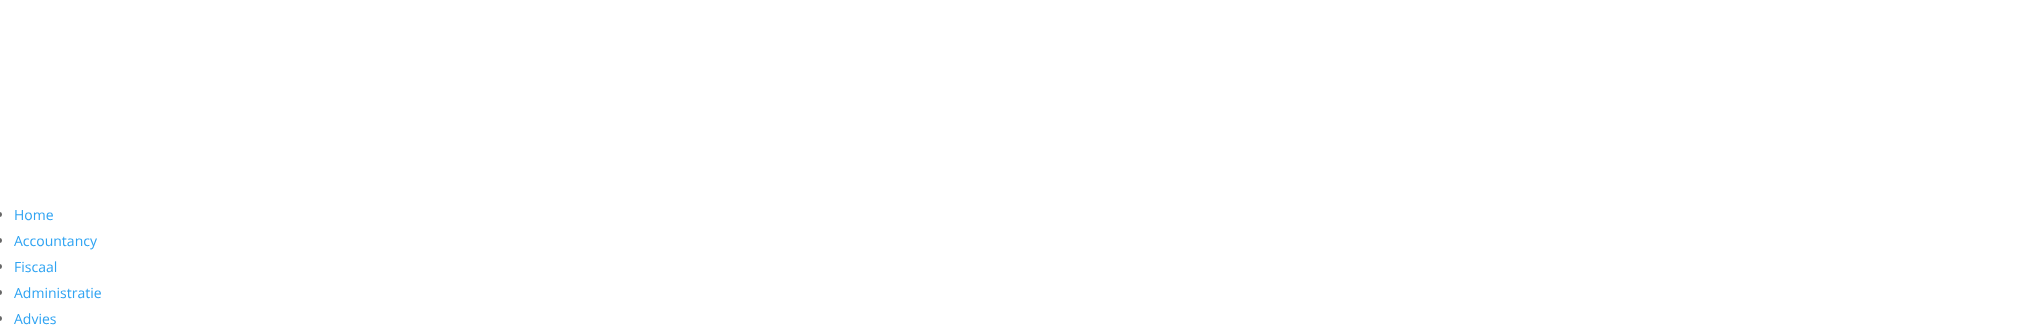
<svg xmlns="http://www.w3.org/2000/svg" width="2020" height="335">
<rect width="100%" height="100%" fill="#fff"/>
<circle cx="-0.5" cy="214.5" r="2.5" fill="#666"/>
<text x="14" y="220" style="font-family:Open Sans;font-size:14px;fill:#2ea3f2">Home</text>
<circle cx="-0.5" cy="240.5" r="2.5" fill="#666"/>
<text x="14" y="246" style="font-family:Open Sans;font-size:14px;fill:#2ea3f2">Accountancy</text>
<circle cx="-0.5" cy="266.5" r="2.5" fill="#666"/>
<text x="14" y="272" style="font-family:Open Sans;font-size:14px;fill:#2ea3f2">Fiscaal</text>
<circle cx="-0.5" cy="292.5" r="2.5" fill="#666"/>
<text x="14" y="298" style="font-family:Open Sans;font-size:14px;fill:#2ea3f2">Administratie</text>
<circle cx="-0.5" cy="318.5" r="2.5" fill="#666"/>
<text x="14" y="324" style="font-family:Open Sans;font-size:14px;fill:#2ea3f2">Advies</text>
</svg>
